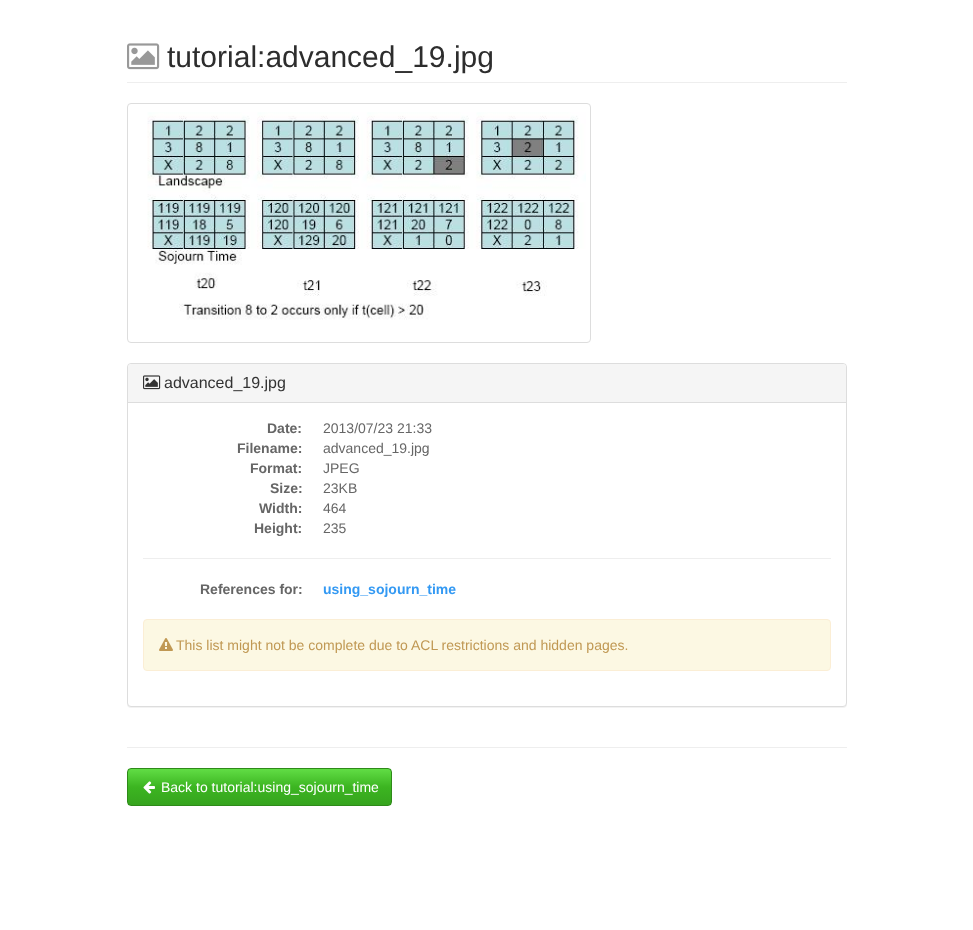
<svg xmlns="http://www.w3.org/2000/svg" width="973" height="930">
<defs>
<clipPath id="clip1"><rect x="127" y="768" width="265" height="38" rx="4"/></clipPath>
<linearGradient id="g1" gradientUnits="userSpaceOnUse" x1="260" y1="769" x2="260" y2="805"><stop offset="0" stop-color="#61dd45"/><stop offset="0.5" stop-color="#3cb521"/><stop offset="1" stop-color="#36a41e"/></linearGradient>
</defs>
<rect width="100%" height="100%" fill="#fff"/>
<rect x="127" y="82" width="720" height="1" fill="#eee"/>
<image x="127" y="43" width="33" height="27" href="media/1.png"/>
<text x="167" y="67" style="font-family:Liberation Sans;font-size:30px;fill:#2d2d2d">tutorial:advanced_19.jpg</text>
<rect x="127.5" y="103.5" width="463" height="239" rx="3.5" fill="none" stroke="#ddd"/>
<image x="147" y="112" width="439" height="208" href="media/2.png"/>
<rect x="127" y="364" width="720" height="344" rx="4" fill="#0000000d" filter="blur(0.5px)"/>
<rect x="127.5" y="363.5" width="719" height="343" rx="3.5" fill="#fff" stroke="#ddd"/>
<path d="M131 364h712c1.5 0 3 1.5 3 3v36h-718v-36c0-1.5 1.5-3 3-3z" fill="#f5f5f5"/>
<rect x="128" y="402" width="718" height="1" fill="#ddd"/>
<image x="143" y="375" width="18" height="15" href="media/3.png"/>
<text x="164" y="388" style="font-family:Liberation Sans;font-size:16px;fill:#333">advanced_19.jpg</text>
<text x="267" y="433" style="font-family:Liberation Sans;font-size:14px;font-weight:bold;fill:#666">Date:</text>
<text x="323" y="433" style="font-family:Liberation Sans;font-size:14px;fill:#666">2013/07/23 21:33</text>
<text x="237" y="453" style="font-family:Liberation Sans;font-size:14px;font-weight:bold;fill:#666">Filename:</text>
<text x="323" y="453" style="font-family:Liberation Sans;font-size:14px;fill:#666">advanced_19.jpg</text>
<text x="250" y="473" style="font-family:Liberation Sans;font-size:14px;font-weight:bold;fill:#666">Format:</text>
<text x="323" y="473" style="font-family:Liberation Sans;font-size:14px;fill:#666">JPEG</text>
<text x="270" y="493" style="font-family:Liberation Sans;font-size:14px;font-weight:bold;fill:#666">Size:</text>
<text x="323" y="493" style="font-family:Liberation Sans;font-size:14px;fill:#666">23KB</text>
<text x="259" y="513" style="font-family:Liberation Sans;font-size:14px;font-weight:bold;fill:#666">Width:</text>
<text x="323" y="513" style="font-family:Liberation Sans;font-size:14px;fill:#666">464</text>
<text x="254" y="533" style="font-family:Liberation Sans;font-size:14px;font-weight:bold;fill:#666">Height:</text>
<text x="323" y="533" style="font-family:Liberation Sans;font-size:14px;fill:#666">235</text>
<rect x="143" y="558" width="688" height="1" fill="#eee"/>
<text x="200" y="594" style="font-family:Liberation Sans;font-size:14px;font-weight:bold;fill:#666">References for:</text>
<text x="323" y="594" style="font-family:Liberation Sans;font-size:14px;font-weight:bold;fill:#3399f3">using_sojourn_time</text>
<rect x="143.5" y="619.5" width="687" height="51" rx="3.5" fill="#fcf8e3" stroke="#fbeed5"/>
<image x="159" y="638" width="14" height="13" href="media/4.png"/>
<text x="176" y="650" style="font-family:Liberation Sans;font-size:14px;fill:#c09853">This list might not be complete due to ACL restrictions and hidden pages.</text>
<rect x="127" y="747" width="720" height="1" fill="#eee"/>
<g clip-path="url(#clip1)">
<rect x="128" y="769" width="263" height="36" fill="url(#g1)"/>
</g>
<rect x="127.5" y="768.5" width="264" height="37" rx="3.5" fill="none" stroke="#2e8a19"/>
<image x="143" y="781" width="12" height="13" href="media/5.png"/>
<text x="161" y="792" style="font-family:Liberation Sans;font-size:14px;fill:#fff">Back to tutorial:using_sojourn_time</text>
</svg>
